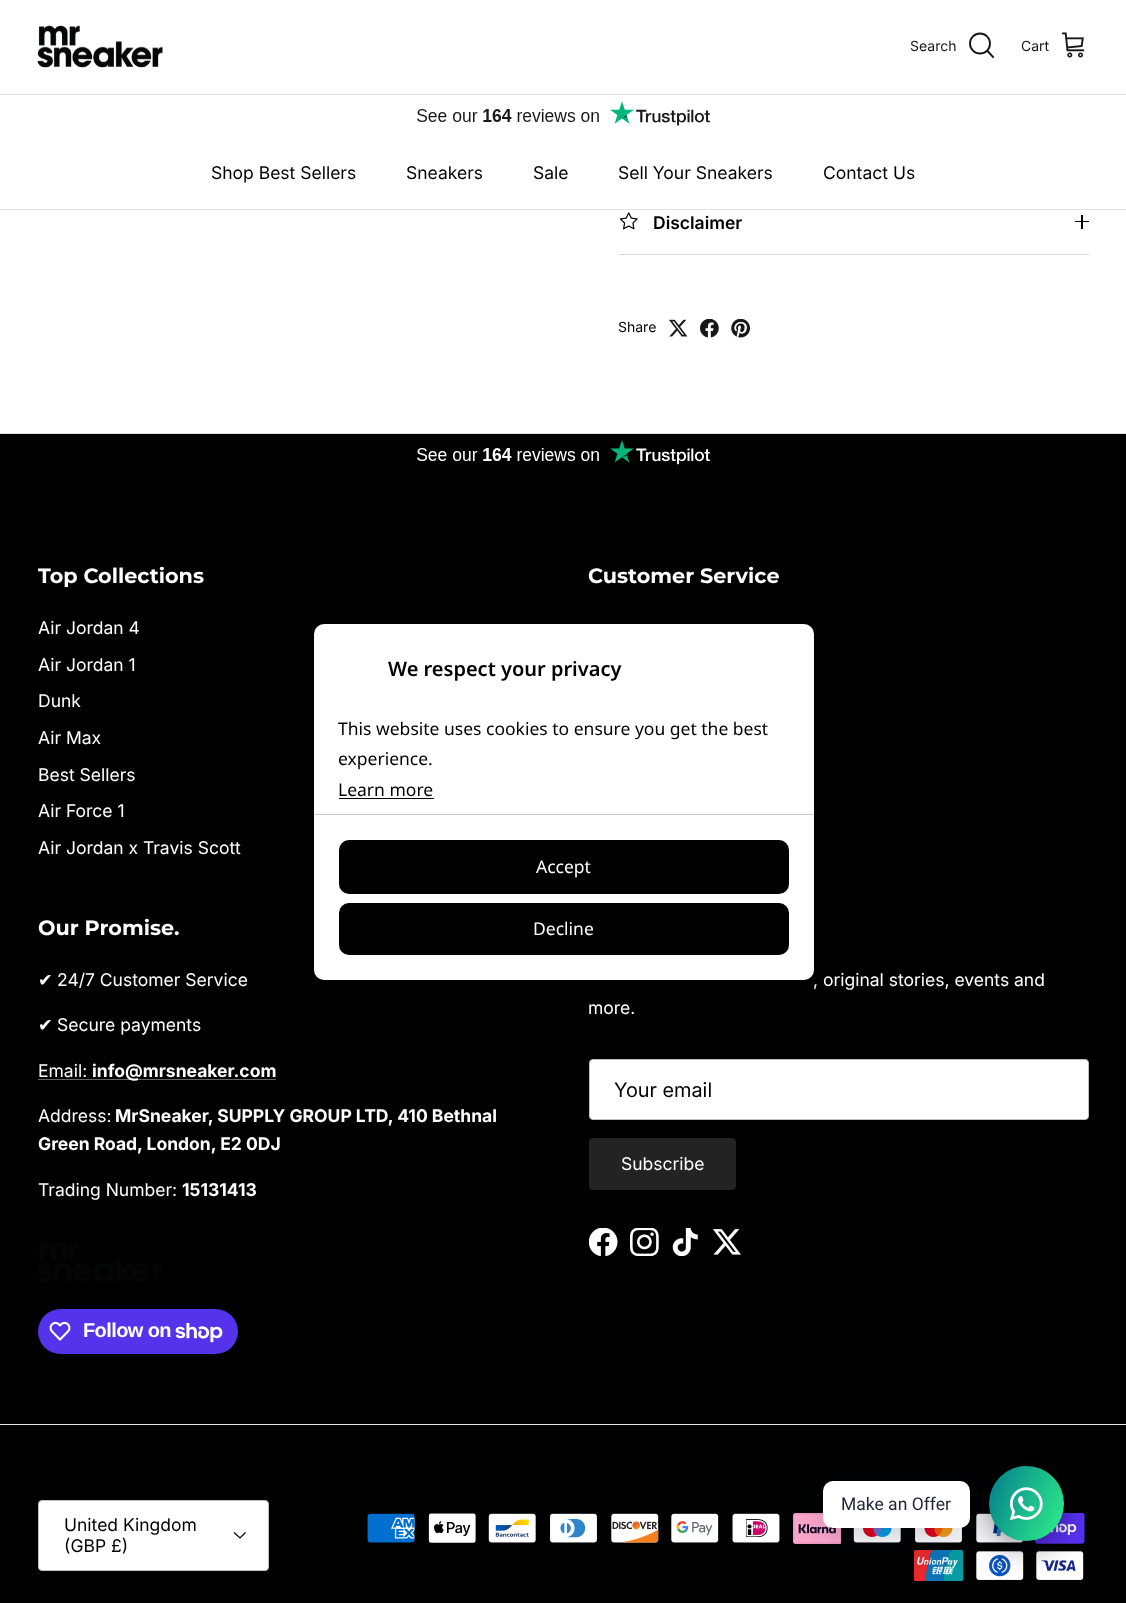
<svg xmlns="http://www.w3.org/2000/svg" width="1126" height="1603">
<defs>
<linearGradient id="g1" gradientUnits="userSpaceOnUse" x1="981" y1="1483" x2="1071" y2="1525"><stop offset="0" stop-color="#047c8d"/><stop offset="1" stop-color="#2ff289"/></linearGradient>
</defs>
<rect width="100%" height="100%" fill="#fff"/>
<rect y="94" width="1126" height="1" fill="#e2e2e2"/>
<image x="37" y="25" width="126" height="43" href="media/1.png"/>
<text x="910" y="51" style="font-family:Inter;font-size:14px;fill:#171717">Search</text>
<circle cx="980" cy="43.5" r="10" fill="none" stroke="#171717" stroke-width="1.9"/>
<path d="M987.5 51l5.5 6" fill="none" stroke="#171717" stroke-width="1.9" stroke-linecap="square"/>
<text x="1021" y="51" style="font-family:Inter;font-size:14px;fill:#171717">Cart</text>
<image x="1062" y="32" width="23" height="26" href="media/2.png"/>
<image x="417" y="101" width="293" height="25" href="media/3.png"/>
<rect y="209" width="1126" height="1" fill="#e2e2e2"/>
<text x="211" y="179" style="font-family:Inter;font-size:17.5px;fill:#000">Shop Best Sellers</text>
<text x="406" y="179" style="font-family:Inter;font-size:17.5px;fill:#000">Sneakers</text>
<text x="533" y="179" style="font-family:Inter;font-size:17.5px;fill:#000">Sale</text>
<text x="618" y="179" style="font-family:Inter;font-size:17.5px;fill:#000">Sell Your Sneakers</text>
<text x="823" y="179" style="font-family:Inter;font-size:17.5px;fill:#000">Contact Us</text>
<rect x="619" y="254" width="470" height="1" fill="#d9d9d9"/>
<image x="619" y="212" width="19" height="18" href="media/4.png"/>
<text x="653" y="229" style="font-family:Inter;font-size:17.5px;font-weight:600;fill:#000">Disclaimer</text>
<rect x="1081" y="215" width="2" height="14" fill="#000"/>
<rect x="1075" y="221" width="14" height="1" fill="#000"/>
<text x="618" y="332" style="font-family:Inter;font-size:14px;fill:#000">Share</text>
<image x="669" y="319" width="19" height="18" href="media/5.png"/>
<image x="700" y="319" width="19" height="19" href="media/6.png"/>
<image x="731" y="319" width="19" height="19" href="media/7.png"/>
<rect y="434" width="1126" height="1169" fill="#000"/>
<rect y="433" width="1126" height="1" fill="#e4e4e4"/>
<image x="417" y="440" width="293" height="25" href="media/8.png"/>
<text x="38" y="583" style="font-family:Montserrat;font-size:20.75px;font-weight:bold;fill:#fff">Top Collections</text>
<text x="38" y="634" style="font-family:Inter;font-size:17.5px;fill:#fff">Air Jordan 4</text>
<text x="38" y="671" style="font-family:Inter;font-size:17.5px;fill:#fff">Air Jordan 1</text>
<text x="38" y="707" style="font-family:Inter;font-size:17.5px;fill:#fff">Dunk</text>
<text x="38" y="744" style="font-family:Inter;font-size:17.5px;fill:#fff">Air Max</text>
<text x="38" y="781" style="font-family:Inter;font-size:17.5px;fill:#fff">Best Sellers</text>
<text x="38" y="817" style="font-family:Inter;font-size:17.5px;fill:#fff">Air Force 1</text>
<text x="38" y="854" style="font-family:Inter;font-size:17.5px;fill:#fff">Air Jordan x Travis Scott</text>
<text x="588" y="583" style="font-family:Montserrat;font-size:20.75px;font-weight:bold;fill:#fff">Customer Service</text>
<text x="38" y="935" style="font-family:Montserrat;font-size:20.75px;font-weight:bold;fill:#fff">Our Promise.</text>
<text x="38" y="986" style="font-family:DejaVu Sans;font-size:17.5px;fill:#fff">✔</text>
<text x="57" y="986" style="font-family:Inter;font-size:17.5px;fill:#fff">24/7 Customer Service</text>
<text x="38" y="1031" style="font-family:DejaVu Sans;font-size:17.5px;fill:#fff">✔</text>
<text x="57" y="1031" style="font-family:Inter;font-size:17.5px;fill:#fff">Secure payments</text>
<text x="38" y="1077" style="font-family:Inter;font-size:17.5px;fill:#fff">Email:</text>
<rect x="38" y="1079" width="238" height="1" fill="#666"/>
<text x="92" y="1077" style="font-family:Inter;font-size:17.5px;font-weight:bold;fill:#fff">info@mrsneaker.com</text>
<text x="38" y="1122" style="font-family:Inter;font-size:17.5px;fill:#fff">Address:</text>
<text x="115" y="1122" style="font-family:Inter;font-size:17.5px;font-weight:bold;fill:#fff">MrSneaker, SUPPLY GROUP LTD, 410 Bethnal</text>
<text x="38" y="1150" style="font-family:Inter;font-size:17.5px;font-weight:bold;fill:#fff">Green Road, London, E2 0DJ</text>
<text x="38" y="1196" style="font-family:Inter;font-size:17.5px;fill:#fff">Trading Number:</text>
<text x="182" y="1196" style="font-family:Inter;font-size:17.5px;font-weight:bold;fill:#fff">15131413</text>
<image x="38" y="1242" width="124" height="40" href="media/9.png"/>
<rect x="38" y="1309" width="200" height="45" rx="22.5" fill="#5433eb"/>
<image x="49" y="1321" width="22" height="20" href="media/10.png"/>
<text x="83" y="1337" style="font-family:Liberation Sans;font-size:20px;font-weight:bold;letter-spacing:-0.6px;fill:#fff">Follow on</text>
<image x="175" y="1323" width="48" height="20" href="media/11.png"/>
<text x="813" y="986" style="font-family:Inter;font-size:17.5px;fill:#fff">, original stories, events and</text>
<text x="588" y="1014" style="font-family:Inter;font-size:17.5px;fill:#fff">more.</text>
<rect x="589.5" y="1059.5" width="499" height="60" rx="3.5" fill="#fff" stroke="#bfbfbf"/>
<text x="614" y="1097" style="font-family:'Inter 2';font-size:20px;fill:#000">Your email</text>
<rect x="589.5" y="1138.5" width="146" height="51" rx="3.5" fill="#232323" stroke="#232323"/>
<text x="621" y="1170" style="font-family:Inter;font-size:17.5px;fill:#fff">Subscribe</text>
<image x="589" y="1228" width="29" height="28" href="media/12.png"/>
<image x="630" y="1228" width="29" height="28" href="media/13.png"/>
<image x="672" y="1228" width="26" height="28" href="media/14.png"/>
<image x="713" y="1229" width="28" height="26" href="media/15.png"/>
<rect y="1424" width="1126" height="1" fill="#e4e4e4"/>
<rect x="38.5" y="1500.5" width="230" height="70" rx="3.5" fill="#fff" stroke="#bfbfbf"/>
<text x="64" y="1531" style="font-family:Inter;font-size:17.5px;fill:#000">United Kingdom</text>
<text x="64" y="1552" style="font-family:Inter;font-size:17.5px;fill:#000">(GBP £)</text>
<path d="M245.5 1532.5l-5.5 5.5l-6-5.5" fill="none" stroke="#000" stroke-width="1.2"/>
<image x="367" y="1513" width="48" height="30" href="media/16.png"/>
<image x="428" y="1513" width="48" height="30" href="media/17.png"/>
<image x="488" y="1513" width="48" height="30" href="media/18.png"/>
<image x="550" y="1513" width="47" height="30" href="media/19.png"/>
<image x="611" y="1513" width="48" height="30" href="media/20.png"/>
<image x="671" y="1513" width="48" height="30" href="media/21.png"/>
<image x="732" y="1513" width="48" height="30" href="media/22.png"/>
<image x="793" y="1513" width="48" height="31" href="media/23.png"/>
<image x="853" y="1528" width="48" height="15" href="media/24.png"/>
<image x="915" y="1527" width="47" height="16" href="media/25.png"/>
<image x="976" y="1513" width="48" height="30" href="media/26.png"/>
<image x="1035" y="1513" width="50" height="31" href="media/27.png"/>
<image x="914" y="1550" width="50" height="31" href="media/28.png"/>
<image x="976" y="1551" width="48" height="29" href="media/29.png"/>
<image x="1036" y="1551" width="48" height="29" href="media/30.png"/>
<rect x="314" y="624" width="500" height="356" rx="10" fill="#00000080" filter="blur(9px)"/>
<rect x="314" y="624" width="500" height="356" rx="10" fill="#fff"/>
<text x="388" y="676" style="font-family:Noto Sans;font-size:20px;font-weight:600;fill:#000">We respect your privacy</text>
<text x="338" y="735" style="font-family:Noto Sans;font-size:17.5px;fill:#000">This website uses cookies to ensure you get the best</text>
<text x="338" y="765" style="font-family:Noto Sans;font-size:17.5px;fill:#000">experience.</text>
<text x="338" y="796" style="font-family:Noto Sans;font-size:17.5px;fill:#000">Learn more</text>
<rect x="339" y="798" width="95" height="1" fill="#000"/>
<rect x="314" y="814" width="500" height="1" fill="#ccc"/>
<rect x="340.5" y="841.5" width="447" height="51" rx="8.5" fill="#000" stroke="#000" stroke-width="3"/>
<text x="536" y="873" style="font-family:Noto Sans;font-size:17.5px;fill:#fff">Accept</text>
<rect x="340.5" y="904.5" width="447" height="49" rx="8.5" fill="#000" stroke="#000" stroke-width="3"/>
<text x="533" y="935" style="font-family:Noto Sans;font-size:17.5px;fill:#fff">Decline</text>
<rect x="989" y="1471" width="75" height="75" rx="37.5" fill="#02061080" filter="blur(15px)"/>
<circle cx="1026.5" cy="1503.5" r="37.5" fill="url(#g1)"/>
<rect x="823" y="1489" width="147" height="46" rx="10" fill="#00122e3d" filter="blur(20px)"/>
<rect x="823" y="1481" width="147" height="47" rx="10" fill="#fff"/>
<text x="841" y="1510" style="font-family:Roboto;font-size:17.5px;fill:#1e2433">Make an Offer</text>
<image x="1009" y="1487" width="34" height="34" href="media/31.png"/>
</svg>
